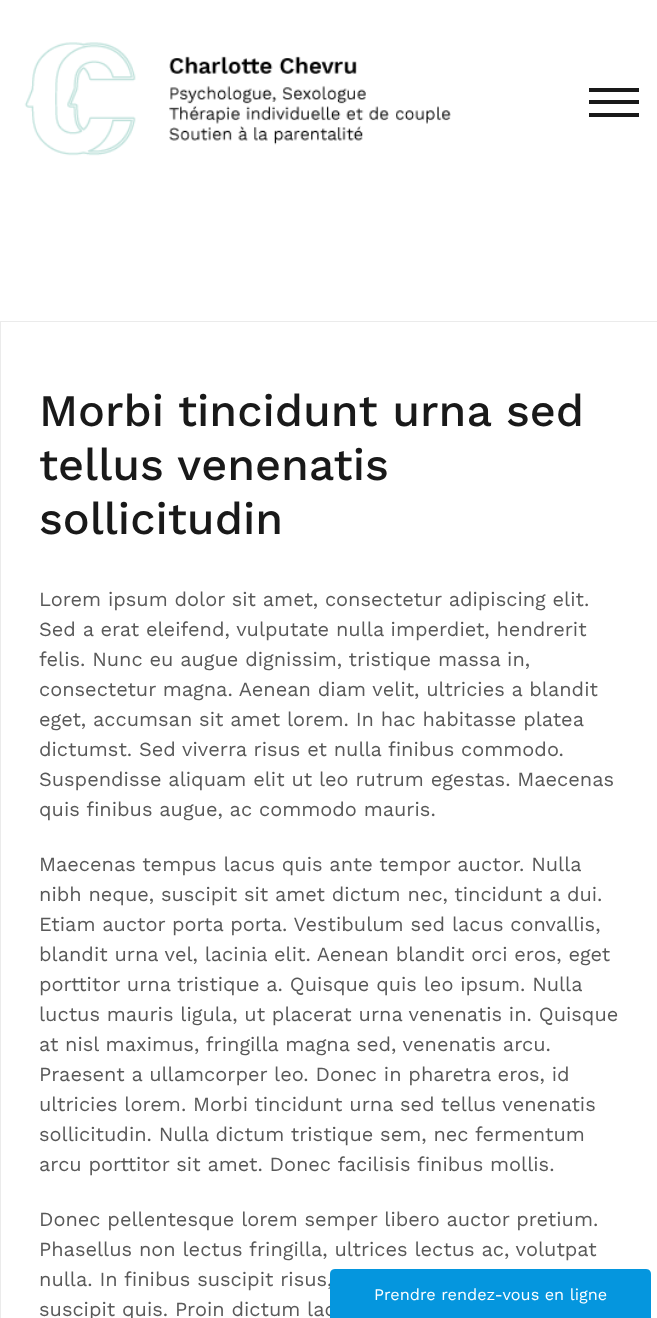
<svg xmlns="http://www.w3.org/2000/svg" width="657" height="1318">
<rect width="100%" height="100%" fill="#fff"/>
<image x="24" y="42" width="427" height="114" href="media/1.png"/>
<rect x="589" y="100" width="50" height="4" fill="#191919"/>
<rect x="589" y="88" width="50" height="4" fill="#191919"/>
<rect x="589" y="113" width="50" height="4" fill="#191919"/>
<rect x="0.5" y="321.5" width="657" height="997" fill="none" stroke="#ebebeb"/>
<text x="39" y="426" style="font-family:Work Sans;font-size:45px;font-weight:500;fill:#191919">Morbi tincidunt urna sed</text>
<text x="39" y="480" style="font-family:Work Sans;font-size:45px;font-weight:500;fill:#191919">tellus venenatis</text>
<text x="39" y="534" style="font-family:Work Sans;font-size:45px;font-weight:500;fill:#191919">sollicitudin</text>
<text x="39" y="606" style="font-family:Work Sans;font-size:20px;fill:#595959">Lorem ipsum dolor sit amet, consectetur adipiscing elit.</text>
<text x="39" y="636" style="font-family:Work Sans;font-size:20px;fill:#595959">Sed a erat eleifend, vulputate nulla imperdiet, hendrerit</text>
<text x="39" y="666" style="font-family:Work Sans;font-size:20px;fill:#595959">felis. Nunc eu augue dignissim, tristique massa in,</text>
<text x="39" y="696" style="font-family:Work Sans;font-size:20px;fill:#595959">consectetur magna. Aenean diam velit, ultricies a blandit</text>
<text x="39" y="726" style="font-family:Work Sans;font-size:20px;fill:#595959">eget, accumsan sit amet lorem. In hac habitasse platea</text>
<text x="39" y="756" style="font-family:Work Sans;font-size:20px;fill:#595959">dictumst. Sed viverra risus et nulla finibus commodo.</text>
<text x="39" y="786" style="font-family:Work Sans;font-size:20px;fill:#595959">Suspendisse aliquam elit ut leo rutrum egestas. Maecenas</text>
<text x="39" y="816" style="font-family:Work Sans;font-size:20px;fill:#595959">quis finibus augue, ac commodo mauris.</text>
<text x="39" y="871" style="font-family:Work Sans;font-size:20px;fill:#595959">Maecenas tempus lacus quis ante tempor auctor. Nulla</text>
<text x="39" y="901" style="font-family:Work Sans;font-size:20px;fill:#595959">nibh neque, suscipit sit amet dictum nec, tincidunt a dui.</text>
<text x="39" y="931" style="font-family:Work Sans;font-size:20px;fill:#595959">Etiam auctor porta porta. Vestibulum sed lacus convallis,</text>
<text x="39" y="961" style="font-family:Work Sans;font-size:20px;fill:#595959">blandit urna vel, lacinia elit. Aenean blandit orci eros, eget</text>
<text x="39" y="991" style="font-family:Work Sans;font-size:20px;fill:#595959">porttitor urna tristique a. Quisque quis leo ipsum. Nulla</text>
<text x="39" y="1021" style="font-family:Work Sans;font-size:20px;fill:#595959">luctus mauris ligula, ut placerat urna venenatis in. Quisque</text>
<text x="39" y="1051" style="font-family:Work Sans;font-size:20px;fill:#595959">at nisl maximus, fringilla magna sed, venenatis arcu.</text>
<text x="39" y="1081" style="font-family:Work Sans;font-size:20px;fill:#595959">Praesent a ullamcorper leo. Donec in pharetra eros, id</text>
<text x="39" y="1111" style="font-family:Work Sans;font-size:20px;fill:#595959">ultricies lorem. Morbi tincidunt urna sed tellus venenatis</text>
<text x="39" y="1141" style="font-family:Work Sans;font-size:20px;fill:#595959">sollicitudin. Nulla dictum tristique sem, nec fermentum</text>
<text x="39" y="1171" style="font-family:Work Sans;font-size:20px;fill:#595959">arcu porttitor sit amet. Donec facilisis finibus mollis.</text>
<text x="39" y="1226" style="font-family:Work Sans;font-size:20px;fill:#595959">Donec pellentesque lorem semper libero auctor pretium.</text>
<text x="39" y="1256" style="font-family:Work Sans;font-size:20px;fill:#595959">Phasellus non lectus fringilla, ultrices lectus ac, volutpat</text>
<text x="39" y="1286" style="font-family:Work Sans;font-size:20px;fill:#595959">nulla. In finibus suscipit risus,</text>
<text x="39" y="1316" style="font-family:Work Sans;font-size:20px;fill:#595959">suscipit quis. Proin dictum lac</text>
<path d="M335 1269h311c3 0 5 2 5 5v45h-321v-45c0-3 2-5 5-5z" fill="#0596de"/>
<text x="374" y="1300" style="font-family:Work Sans;font-size:16.25px;fill:#fff">Prendre rendez-vous en ligne</text>
</svg>
